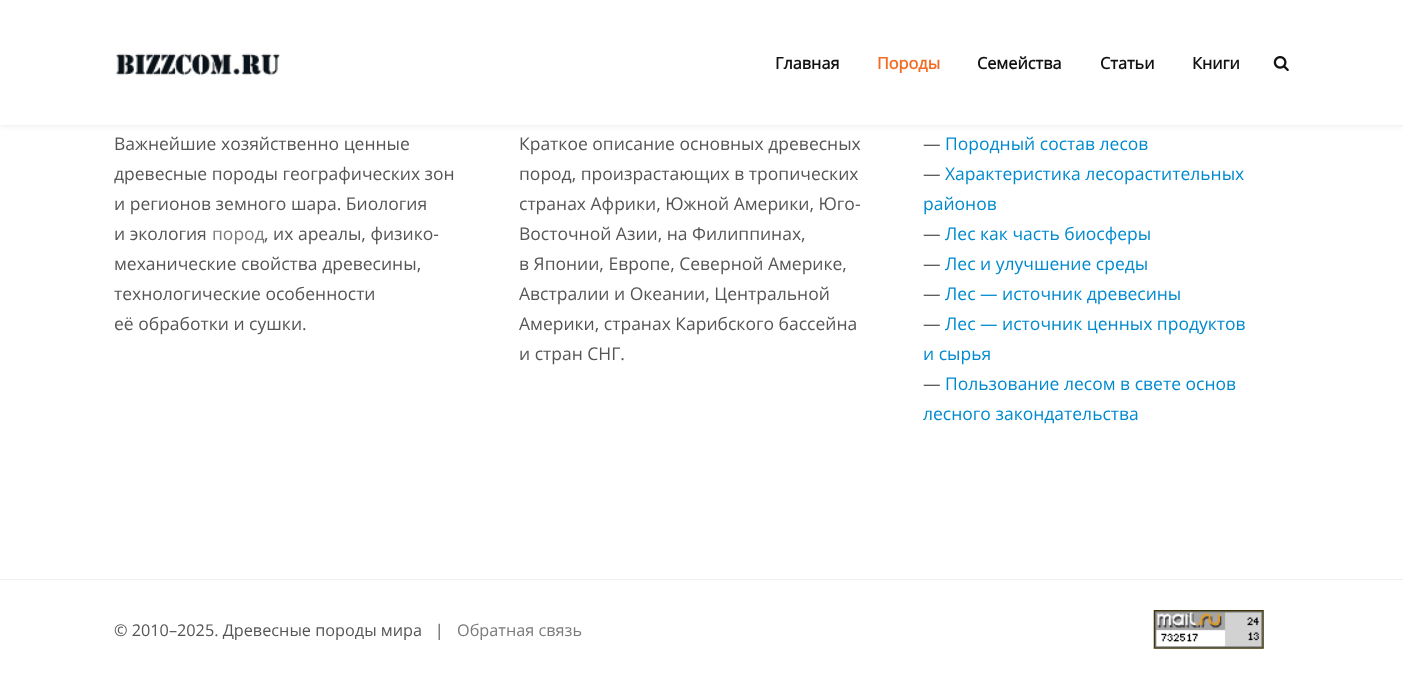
<svg xmlns="http://www.w3.org/2000/svg" width="1403" height="679">
<rect width="100%" height="100%" fill="#fff"/>
<rect width="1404" height="125" fill="#0000001a" filter="blur(3px)"/>
<rect width="1403" height="125" fill="#fff"/>
<image x="116" y="53" width="164" height="23" href="media/1.png"/>
<text x="775" y="69" style="font-family:Open Sans;font-size:16.25px;font-weight:bold;fill:#121212">Главная</text>
<text x="877" y="69" style="font-family:Open Sans;font-size:16.25px;font-weight:bold;fill:#f36b21">Породы</text>
<text x="977" y="69" style="font-family:Open Sans;font-size:16.25px;font-weight:bold;fill:#121212">Семейства</text>
<text x="1100" y="69" style="font-family:Open Sans;font-size:16.25px;font-weight:bold;fill:#121212">Статьи</text>
<text x="1192" y="69" style="font-family:Open Sans;font-size:16.25px;font-weight:bold;fill:#121212">Книги</text>
<image x="1273" y="56" width="16" height="16" href="media/2.png"/>
<text x="114" y="150" style="font-family:Open Sans;font-size:17.5px;fill:#555">Важнейшие хозяйственно ценные</text>
<text x="114" y="180" style="font-family:Open Sans;font-size:17.5px;fill:#555">древесные породы географических зон</text>
<text x="114" y="210" style="font-family:Open Sans;font-size:17.5px;fill:#555">и регионов земного шара. Биология</text>
<text x="114" y="240" style="font-family:Open Sans;font-size:17.5px;fill:#555">и экология</text>
<text x="212" y="240" style="font-family:Open Sans;font-size:17.5px;fill:#7a7a7a">пород</text>
<text x="264" y="240" style="font-family:Open Sans;font-size:17.5px;fill:#555">, их ареалы, физико-</text>
<text x="114" y="270" style="font-family:Open Sans;font-size:17.5px;fill:#555">механические свойства древесины,</text>
<text x="114" y="300" style="font-family:Open Sans;font-size:17.5px;fill:#555">технологические особенности</text>
<text x="114" y="330" style="font-family:Open Sans;font-size:17.5px;fill:#555">её обработки и сушки.</text>
<text x="519" y="150" style="font-family:Open Sans;font-size:17.5px;fill:#555">Краткое описание основных древесных</text>
<text x="519" y="180" style="font-family:Open Sans;font-size:17.5px;fill:#555">пород, произрастающих в тропических</text>
<text x="519" y="210" style="font-family:Open Sans;font-size:17.5px;fill:#555">странах Африки, Южной Америки, Юго-</text>
<text x="519" y="240" style="font-family:Open Sans;font-size:17.5px;fill:#555">Восточной Азии, на Филиппинах,</text>
<text x="519" y="270" style="font-family:Open Sans;font-size:17.5px;fill:#555">в Японии, Европе, Северной Америке,</text>
<text x="519" y="300" style="font-family:Open Sans;font-size:17.5px;fill:#555">Австралии и Океании, Центральной</text>
<text x="519" y="330" style="font-family:Open Sans;font-size:17.5px;fill:#555">Америки, странах Карибского бассейна</text>
<text x="519" y="360" style="font-family:Open Sans;font-size:17.5px;fill:#555">и стран СНГ.</text>
<text x="923" y="150" style="font-family:Open Sans;font-size:17.5px;fill:#555">—</text>
<text x="945" y="150" style="font-family:Open Sans;font-size:17.5px;fill:#008ace">Породный состав лесов</text>
<text x="923" y="180" style="font-family:Open Sans;font-size:17.5px;fill:#555">—</text>
<text x="945" y="180" style="font-family:Open Sans;font-size:17.5px;fill:#008ace">Характеристика лесорастительных</text>
<text x="923" y="210" style="font-family:Open Sans;font-size:17.5px;fill:#008ace">районов</text>
<text x="923" y="240" style="font-family:Open Sans;font-size:17.5px;fill:#555">—</text>
<text x="945" y="240" style="font-family:Open Sans;font-size:17.5px;fill:#008ace">Лес как часть биосферы</text>
<text x="923" y="270" style="font-family:Open Sans;font-size:17.5px;fill:#555">—</text>
<text x="945" y="270" style="font-family:Open Sans;font-size:17.5px;fill:#008ace">Лес и улучшение среды</text>
<text x="923" y="300" style="font-family:Open Sans;font-size:17.5px;fill:#555">—</text>
<text x="945" y="300" style="font-family:Open Sans;font-size:17.5px;fill:#008ace">Лес — источник древесины</text>
<text x="923" y="330" style="font-family:Open Sans;font-size:17.5px;fill:#555">—</text>
<text x="945" y="330" style="font-family:Open Sans;font-size:17.5px;fill:#008ace">Лес — источник ценных продуктов</text>
<text x="923" y="360" style="font-family:Open Sans;font-size:17.5px;fill:#008ace">и сырья</text>
<text x="923" y="390" style="font-family:Open Sans;font-size:17.5px;fill:#555">—</text>
<text x="945" y="390" style="font-family:Open Sans;font-size:17.5px;fill:#008ace">Пользование лесом в свете основ</text>
<text x="923" y="420" style="font-family:Open Sans;font-size:17.5px;fill:#008ace">лесного закондательства</text>
<rect y="579" width="1403" height="1" fill="#edf0f0"/>
<text x="114" y="636" style="font-family:Open Sans;font-size:16.25px;fill:#555" xml:space="preserve">© 2010–2025. Древесные породы мира   |</text>
<text x="457" y="636" style="font-family:Open Sans;font-size:16.25px;fill:#7a7a7a">Обратная связь</text>
<image x="1153" y="610" width="111" height="39" href="media/3.png"/>
</svg>
